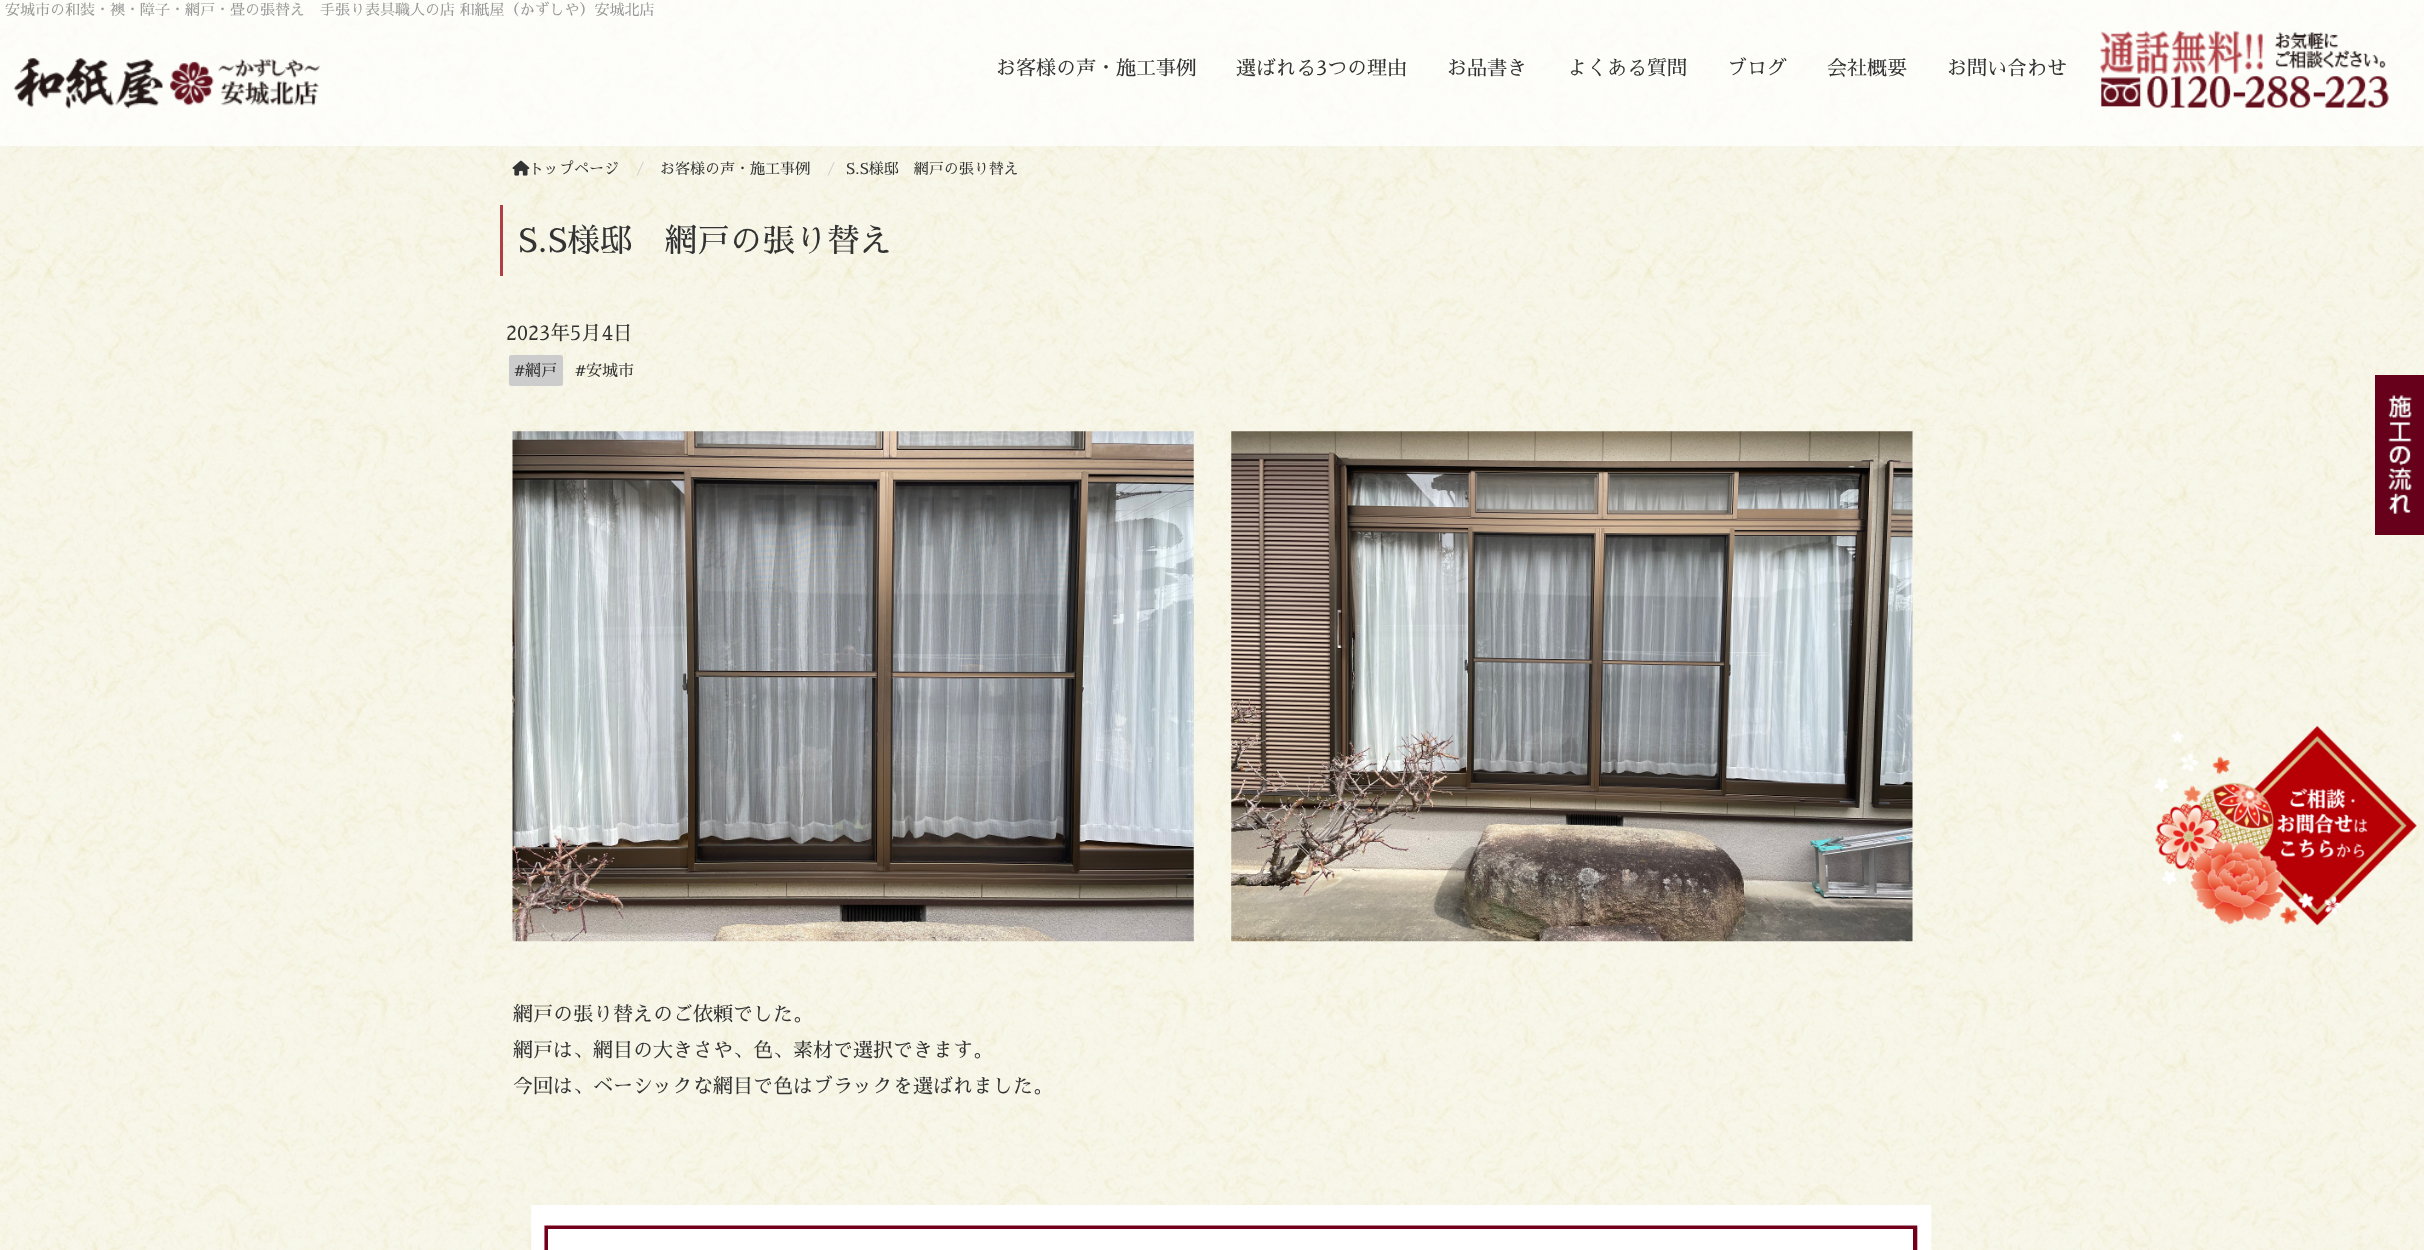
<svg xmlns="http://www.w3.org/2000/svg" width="2424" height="1250">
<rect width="100%" height="100%" fill="#fff"/>
<image x="0" y="0" width="2424" height="1250" href="media/1.png"/>
<rect width="2424" height="146" fill="#ffffffbf"/>
<text x="5" y="15" style="font-family:Sawarabi Mincho;font-size:15px;fill:#999">安城市の和装・襖・障子・網戸・畳の張替え　手張り表具職人の店 和紙屋（かずしや）安城北店</text>
<image x="13" y="58" width="307" height="51" href="media/2.png"/>
<text x="996" y="75" style="font-family:Sawarabi Mincho;font-size:20px;fill:#333">お客様の声・施工事例</text>
<text x="1236" y="75" style="font-family:Sawarabi Mincho;font-size:20px;fill:#333">選ばれる3つの理由</text>
<text x="1447" y="75" style="font-family:Sawarabi Mincho;font-size:20px;fill:#333">お品書き</text>
<text x="1567" y="75" style="font-family:Sawarabi Mincho;font-size:20px;fill:#333">よくある質問</text>
<text x="1727" y="75" style="font-family:Sawarabi Mincho;font-size:20px;fill:#333">ブログ</text>
<text x="1827" y="75" style="font-family:Sawarabi Mincho;font-size:20px;fill:#333">会社概要</text>
<text x="1947" y="75" style="font-family:Sawarabi Mincho;font-size:20px;fill:#333">お問い合わせ</text>
<image x="2100" y="30" width="289" height="78" href="media/3.png"/>
<image x="512" y="160" width="18" height="16" href="media/4.png"/>
<text x="529" y="174" style="font-family:Sawarabi Mincho;font-size:15px;fill:#333">トップページ</text>
<text x="636" y="174" style="font-family:Sawarabi Mincho;font-size:15px;fill:#ccc">/</text>
<text x="660" y="174" style="font-family:Sawarabi Mincho;font-size:15px;fill:#333">お客様の声・施工事例</text>
<text x="827" y="174" style="font-family:Sawarabi Mincho;font-size:15px;fill:#ccc">/</text>
<text x="846" y="174" style="font-family:Sawarabi Mincho;font-size:15px;fill:#333">S.S様邸　網戸の張り替え</text>
<rect x="500" y="205" width="3" height="71" fill="#b03f45"/>
<text x="518" y="252" style="font-family:Sawarabi Mincho;font-size:32.5px;fill:#333">S.S様邸　網戸の張り替え</text>
<text x="506" y="340" style="font-family:Sawarabi Mincho;font-size:20px;fill:#333">2023年5月4日</text>
<rect x="509" y="355" width="54" height="31" rx="2.5" fill="#ccc"/>
<text x="514" y="376" style="font-family:Sawarabi Mincho;font-size:16px;fill:#333">#網戸</text>
<text x="575" y="376" style="font-family:Sawarabi Mincho;font-size:16px;fill:#333">#安城市</text>
<image x="512" y="431" width="682" height="511" href="media/5.png"/>
<image x="1231" y="431" width="682" height="511" href="media/6.png"/>
<text x="513" y="1021" style="font-family:Sawarabi Mincho;font-size:20px;fill:#333">網戸の張り替えのご依頼でした。</text>
<text x="513" y="1057" style="font-family:Sawarabi Mincho;font-size:20px;fill:#333">網戸は、網目の大きさや、色、素材で選択できます。</text>
<text x="513" y="1093" style="font-family:Sawarabi Mincho;font-size:20px;fill:#333">今回は、ベーシックな網目で色はブラックを選ばれました。</text>
<image x="531" y="1205" width="1401" height="45" href="media/7.png"/>
<image x="2375" y="375" width="49" height="160" href="media/8.png"/>
<image x="2154" y="725" width="263" height="201" href="media/9.png"/>
</svg>
